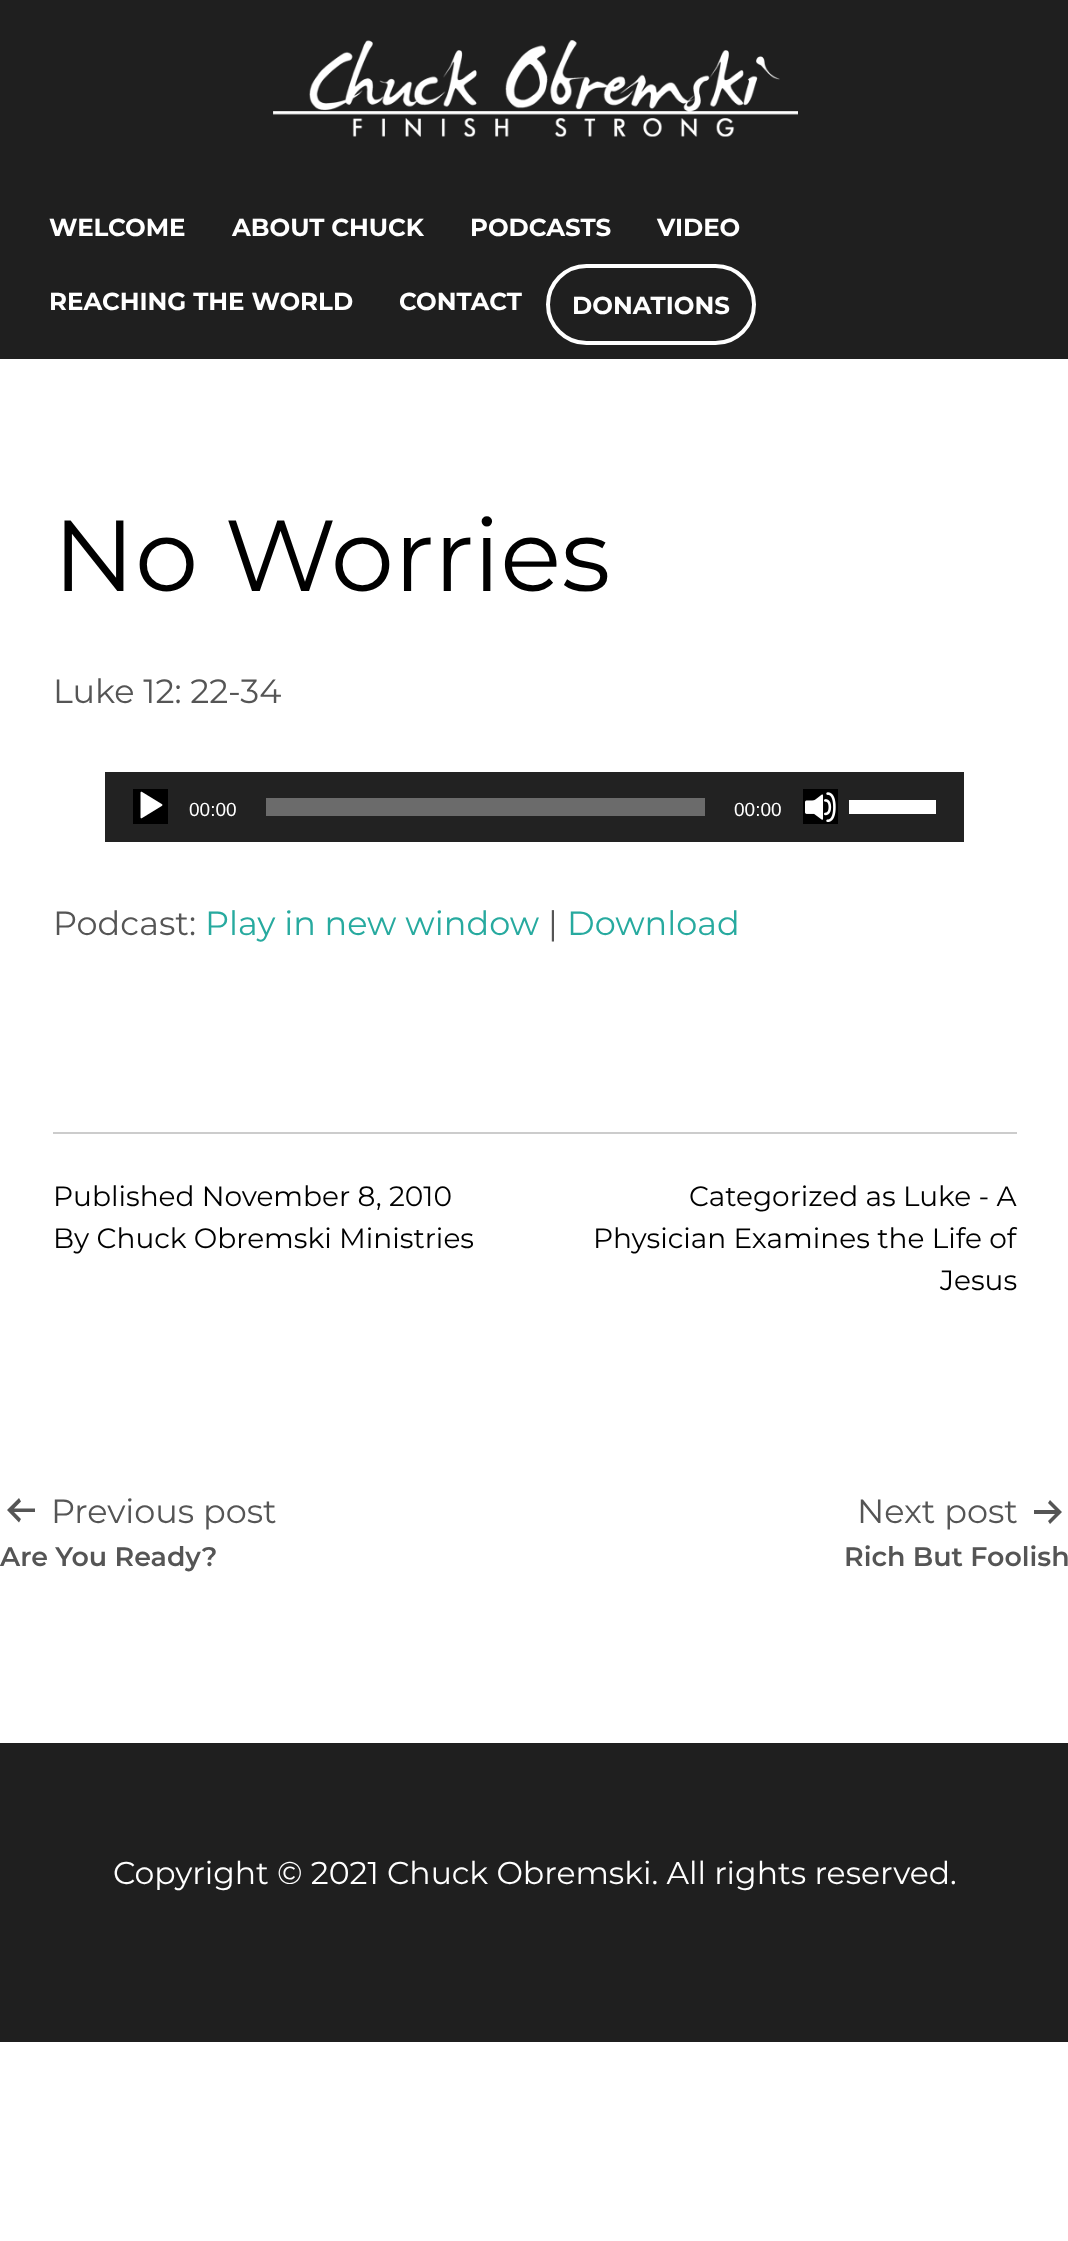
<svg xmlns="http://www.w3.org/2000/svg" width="1068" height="2241">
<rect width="100%" height="100%" fill="#fff"/>
<rect width="1068" height="2042" fill="#1f1f1f"/>
<image x="273" y="40" width="525" height="97" href="media/1.png"/>
<text x="49" y="236" style="font-family:Montserrat;font-size:24.5px;font-weight:bold;fill:#fff">WELCOME</text>
<text x="232" y="236" style="font-family:Montserrat;font-size:24.5px;font-weight:bold;fill:#fff">ABOUT CHUCK</text>
<text x="470" y="236" style="font-family:Montserrat;font-size:24.5px;font-weight:bold;fill:#fff">PODCASTS</text>
<text x="657" y="236" style="font-family:Montserrat;font-size:24.5px;font-weight:bold;fill:#fff">VIDEO</text>
<text x="49" y="310" style="font-family:Montserrat;font-size:24.5px;font-weight:bold;fill:#fff">REACHING THE WORLD</text>
<text x="399" y="310" style="font-family:Montserrat;font-size:24.5px;font-weight:bold;fill:#fff">CONTACT</text>
<rect x="548" y="266" width="206" height="77" rx="38.5" fill="none" stroke="#fff" stroke-width="4"/>
<text x="572" y="314" style="font-family:Montserrat;font-size:24.5px;font-weight:bold;fill:#fff">DONATIONS</text>
<rect y="359" width="1068" height="1384" fill="#fff"/>
<text x="53" y="591" style="font-family:Montserrat;font-size:100.75px;fill:#000">No Worries</text>
<text x="53" y="703" style="font-family:Montserrat;font-size:33.5px;fill:#555">Luke 12: 22-34</text>
<rect x="105" y="772" width="859" height="70" fill="#222"/>
<rect x="133" y="789" width="35" height="35" fill="#000"/>
<image x="140" y="791" width="23" height="28" href="media/2.png"/>
<text x="189" y="816" style="font-family:Liberation Sans;font-size:19px;fill:#fff">00:00</text>
<rect x="266" y="798" width="439" height="18" fill="#6b6b6b"/>
<text x="734" y="816" style="font-family:Liberation Sans;font-size:19px;fill:#fff">00:00</text>
<rect x="803" y="789" width="35" height="35" fill="#000"/>
<image x="805" y="792" width="31" height="30" href="media/3.png"/>
<rect x="849" y="800" width="87" height="14" fill="#fff"/>
<text x="53" y="935" style="font-family:Montserrat;font-size:33.5px;fill:#555">Podcast:</text>
<text x="205" y="935" style="font-family:Montserrat;font-size:33.5px;fill:#27aa9f">Play in new window</text>
<text x="548" y="935" style="font-family:Montserrat;font-size:33.5px;fill:#555">|</text>
<text x="567" y="935" style="font-family:Montserrat;font-size:33.5px;fill:#27aa9f">Download</text>
<rect x="53" y="1132" width="964" height="2" fill="#ccc"/>
<text x="53" y="1206" style="font-family:Montserrat;font-size:28px;fill:#000">Published November 8, 2010</text>
<text x="53" y="1248" style="font-family:Montserrat;font-size:28px;fill:#000">By Chuck Obremski Ministries</text>
<text x="689" y="1206" style="font-family:Montserrat;font-size:28px;fill:#000">Categorized as Luke - A</text>
<text x="593" y="1248" style="font-family:Montserrat;font-size:28px;fill:#000">Physician Examines the Life of</text>
<text x="940" y="1290" style="font-family:Montserrat;font-size:28px;fill:#000">Jesus</text>
<path d="M35 1512v-3.5h-21l7-7l-2-3.5l-12 12l12 12.5l2-3.5l-7-7z" fill="#555" fill-rule="evenodd"/>
<text x="51" y="1523" style="font-family:Montserrat;font-size:33.5px;fill:#555">Previous post</text>
<text x="0" y="1566" style="font-family:Montserrat;font-size:26.9px;font-weight:600;fill:#555">Are You Ready?</text>
<text x="857" y="1523" style="font-family:Montserrat;font-size:33.5px;fill:#555">Next post</text>
<path d="M1034 1514v-4h21l-7-7l2-3l12 12l-12 12l-2-3l7-7z" fill="#555" fill-rule="evenodd"/>
<text x="844" y="1566" style="font-family:Montserrat;font-size:26.9px;font-weight:600;fill:#555">Rich But Foolish</text>
<text x="113" y="1884" style="font-family:Montserrat;font-size:31.5px;fill:#fff">Copyright © 2021 Chuck Obremski. All rights reserved.</text>
</svg>
